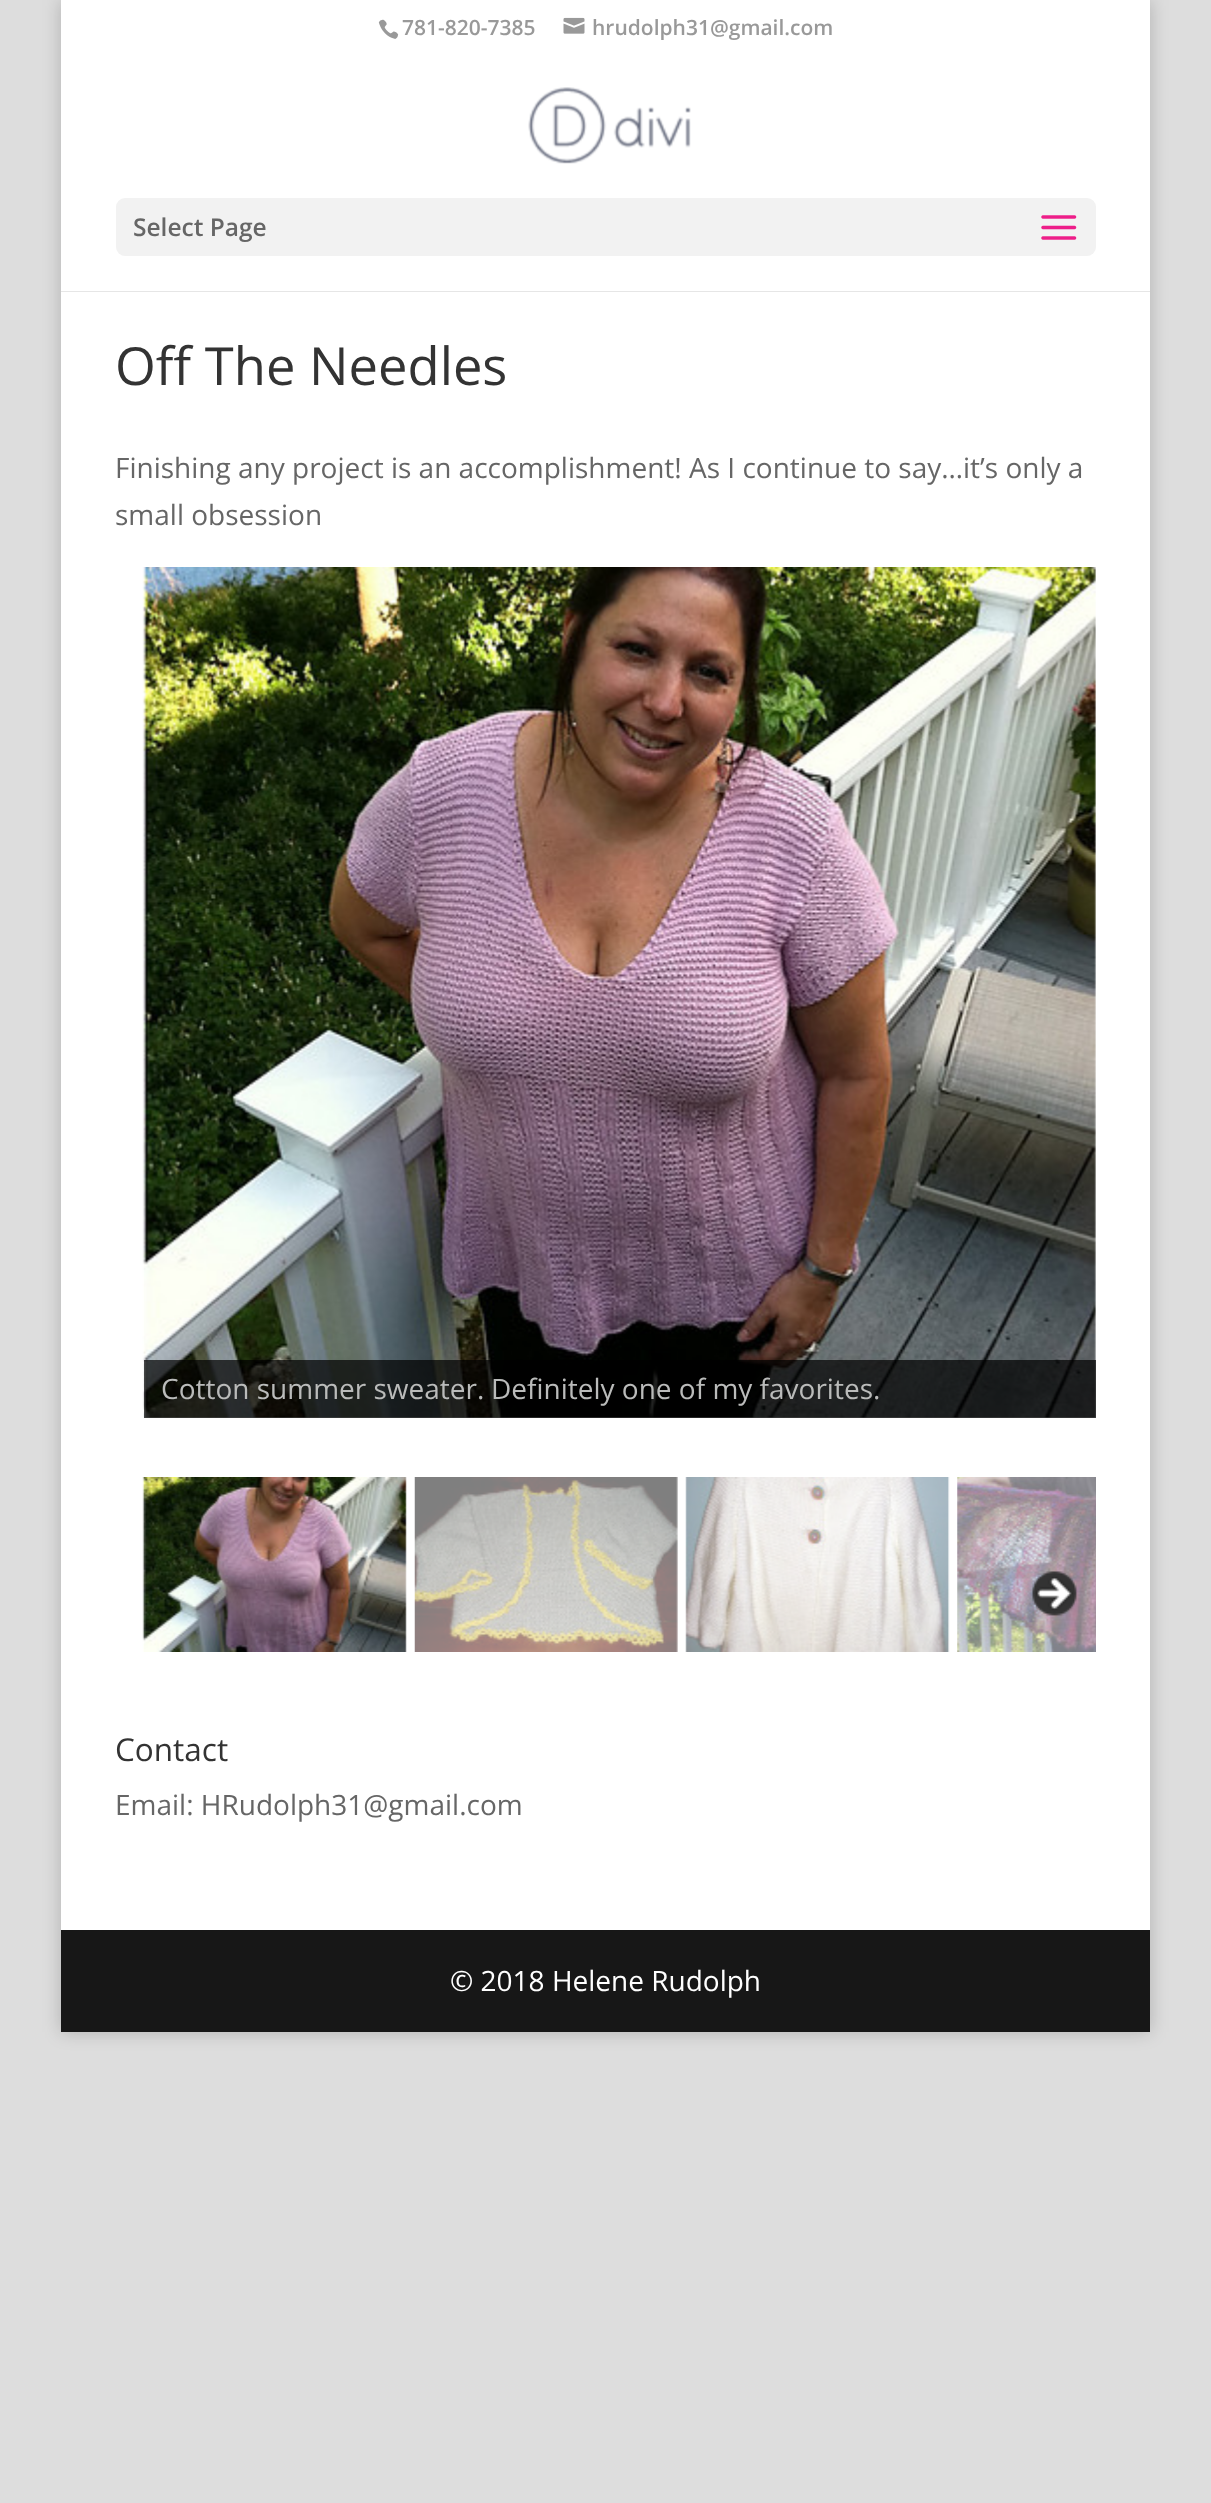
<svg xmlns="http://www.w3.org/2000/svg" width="1211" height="2503">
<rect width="100%" height="100%" fill="#ddd"/>
<rect x="61" width="1089" height="2032" fill="#00000033" filter="blur(9px)"/>
<path d="M61 54v238h1089v-238v236h-1089z" fill="#e6e6e6"/>
<rect x="61" width="1089" height="291" fill="#fff"/>
<image x="378" y="19" width="21" height="20" href="media/1.png"/>
<text x="402" y="35" style="font-family:Open Sans;font-size:21px;font-weight:600;fill:#999">781-820-7385</text>
<image x="563" y="17" width="22" height="17" href="media/2.png"/>
<text x="592" y="35" style="font-family:Open Sans;font-size:21px;font-weight:600;fill:#999">hrudolph31@gmail.com</text>
<image x="528" y="87" width="163" height="77" href="media/3.png"/>
<rect x="116" y="198" width="980" height="58" rx="9" fill="#f2f2f2"/>
<text x="133" y="236" style="font-family:Open Sans;font-size:24.5px;font-weight:600;fill:#666">Select Page</text>
<image x="1041" y="215" width="36" height="25" href="media/4.png"/>
<rect x="61" y="292" width="1089" height="1638" fill="#fff"/>
<text x="115" y="385" style="font-family:Open Sans;font-size:52.5px;fill:#333">Off The Needles</text>
<text x="115" y="478" style="font-family:Open Sans;font-size:28px;fill:#666">Finishing any project is an accomplishment! As I continue to say…it’s only a</text>
<text x="115" y="525" style="font-family:Open Sans;font-size:28px;fill:#666">small obsession</text>
<image x="142" y="567" width="954" height="851" href="media/5.png"/>
<rect x="144" y="1360" width="952" height="58" fill="#000000b3"/>
<text x="161" y="1399" style="font-family:Open Sans;font-size:28px;fill:#babbba">Cotton summer sweater.</text>
<text x="491" y="1399" style="font-family:Open Sans;font-size:28px;fill:#babbba">Definitely one of my favorites.</text>
<image x="142" y="1477" width="265" height="175" href="media/6.png"/>
<image x="414" y="1477" width="264" height="175" href="media/7.png"/>
<image x="685" y="1477" width="265" height="175" href="media/8.png"/>
<image x="957" y="1477" width="139" height="175" href="media/9.png"/>
<image x="1032" y="1571" width="45" height="45" href="media/10.png"/>
<text x="115" y="1761" style="font-family:Open Sans;font-size:31.5px;fill:#333">Contact</text>
<text x="115" y="1815" style="font-family:Open Sans;font-size:28px;fill:#666">Email: HRudolph31@gmail.com</text>
<rect x="61" y="1930" width="1089" height="102" fill="#171717"/>
<text x="450" y="1991" style="font-family:Open Sans;font-size:28px;fill:#fff">© 2018 Helene Rudolph</text>
</svg>
